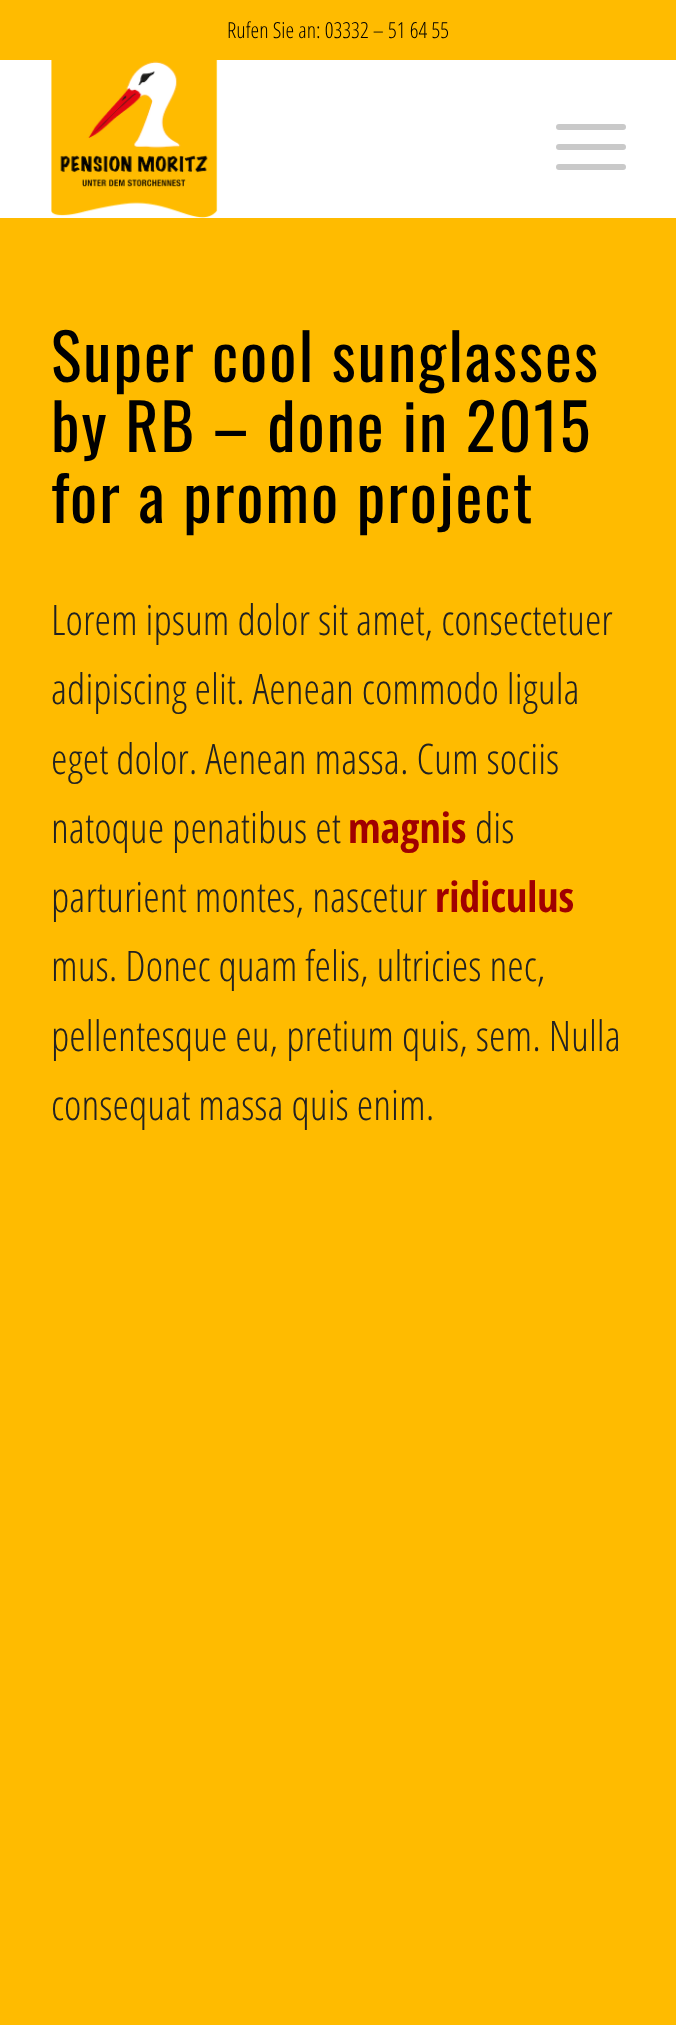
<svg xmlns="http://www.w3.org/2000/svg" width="676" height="2025">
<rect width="100%" height="100%" fill="#fb0"/>
<text x="227" y="38" style="font-family:Open Sans Condensed;font-size:22px;font-weight:300;fill:#000">Rufen Sie an: 03332 – 51 64 55</text>
<rect y="60" width="676" height="158" fill="#fff"/>
<image x="51" y="60" width="167" height="158" href="media/1.png"/>
<rect x="556" y="144" width="70" height="6" rx="3" fill="#c9c9c9"/>
<rect x="556" y="124" width="70" height="6" rx="3" fill="#c9c9c9"/>
<rect x="556" y="164" width="70" height="6" rx="3" fill="#c9c9c9"/>
<text x="51" y="382" style="font-family:Oswald;font-size:64px;letter-spacing:2px;fill:#000">Super cool sunglasses</text>
<text x="51" y="452" style="font-family:Oswald;font-size:64px;letter-spacing:2px;fill:#000">by RB – done in 2015</text>
<text x="51" y="523" style="font-family:Oswald;font-size:64px;letter-spacing:2px;fill:#000">for a promo project</text>
<text x="51" y="635" style="font-family:Open Sans Condensed;font-size:42px;font-weight:300;fill:#222">Lorem ipsum dolor sit amet, consectetuer</text>
<text x="51" y="704" style="font-family:Open Sans Condensed;font-size:42px;font-weight:300;fill:#222">adipiscing elit. Aenean commodo ligula</text>
<text x="51" y="774" style="font-family:Open Sans Condensed;font-size:42px;font-weight:300;fill:#222">eget dolor. Aenean massa. Cum sociis</text>
<text x="51" y="843" style="font-family:Open Sans Condensed;font-size:42px;font-weight:300;fill:#222">natoque penatibus et</text>
<text x="348" y="843" style="font-family:Open Sans Condensed;font-size:42px;font-weight:bold;fill:#a00000">magnis</text>
<text x="475" y="843" style="font-family:Open Sans Condensed;font-size:42px;font-weight:300;fill:#222">dis</text>
<text x="51" y="912" style="font-family:Open Sans Condensed;font-size:42px;font-weight:300;fill:#222">parturient montes, nascetur</text>
<text x="435" y="912" style="font-family:Open Sans Condensed;font-size:42px;font-weight:bold;fill:#a00000">ridiculus</text>
<text x="51" y="981" style="font-family:Open Sans Condensed;font-size:42px;font-weight:300;fill:#222">mus. Donec quam felis, ultricies nec,</text>
<text x="51" y="1051" style="font-family:Open Sans Condensed;font-size:42px;font-weight:300;fill:#222">pellentesque eu, pretium quis, sem. Nulla</text>
<text x="51" y="1120" style="font-family:Open Sans Condensed;font-size:42px;font-weight:300;fill:#222">consequat massa quis enim.</text>
</svg>
